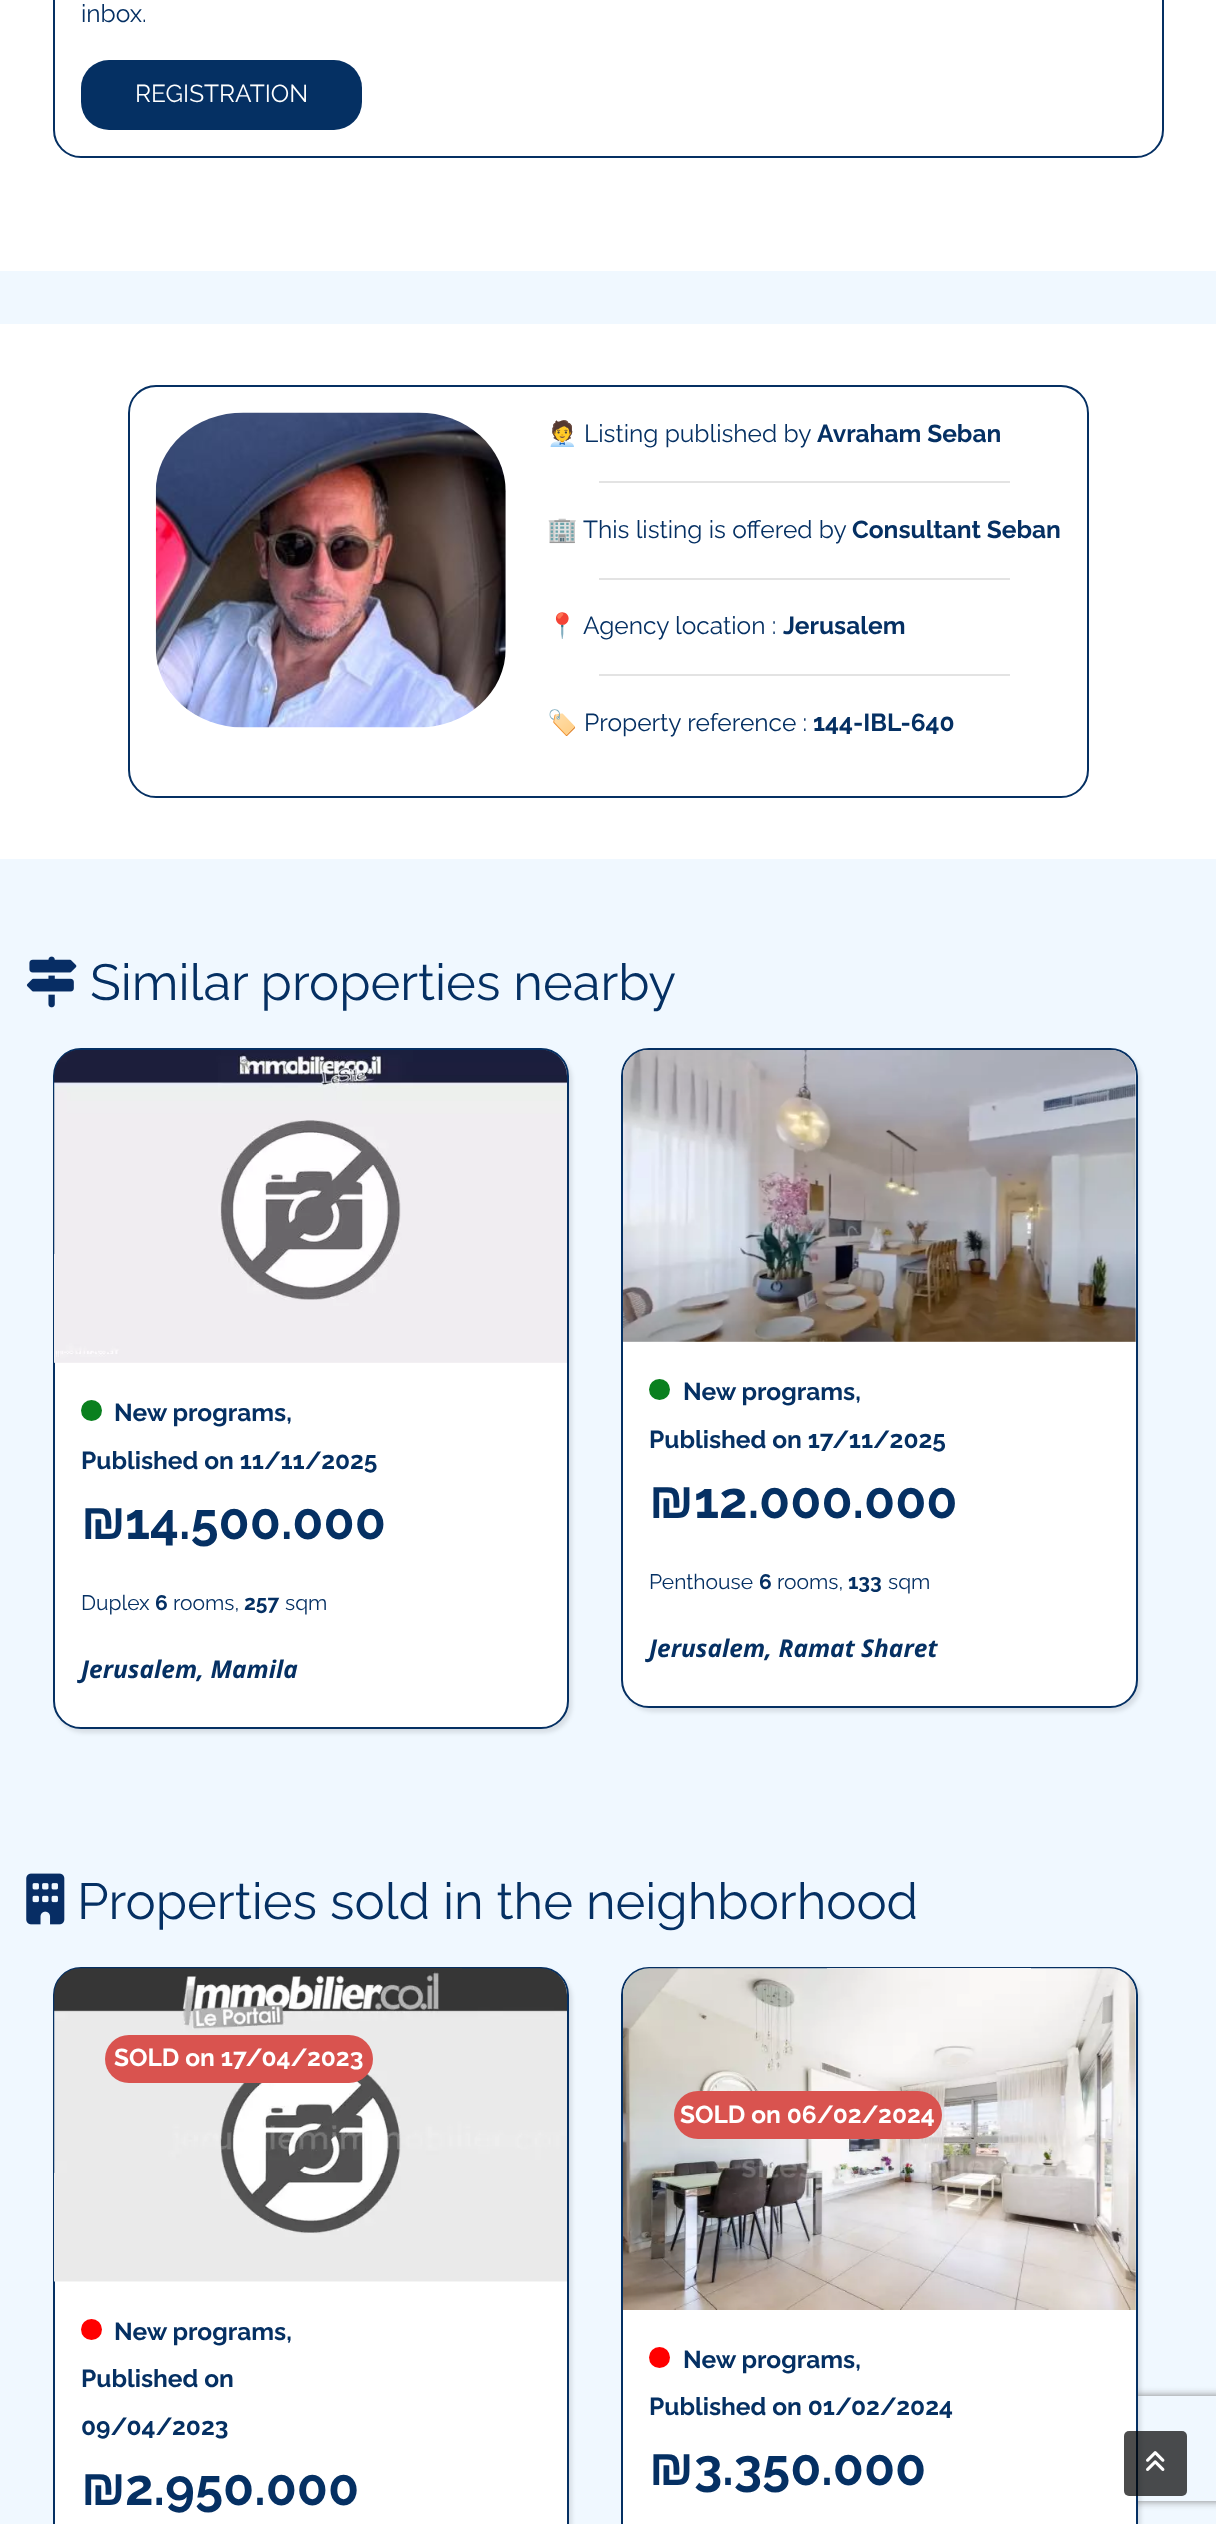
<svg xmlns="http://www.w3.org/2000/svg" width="1216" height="2524">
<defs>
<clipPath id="clip1"><path d="M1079 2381h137v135h-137zm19 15h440c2 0 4 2 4 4v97c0 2-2 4-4 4h-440c-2 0-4-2-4-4v-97c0-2 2-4 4-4z" clip-rule="evenodd"/></clipPath>
</defs>
<rect width="100%" height="100%" fill="#fff"/>
<rect x="54" y="-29" width="1109" height="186" rx="27" fill="none" stroke="#053063" stroke-width="2"/>
<text x="81" y="22" style="font-family:Raleway;font-size:24.5px;fill:#053063">inbox.</text>
<rect x="81" y="60" width="281" height="70" rx="28" fill="#053063"/>
<text x="135" y="102" style="font-family:Raleway;font-size:24.5px;fill:#fff">REGISTRATION</text>
<rect y="271" width="1216" height="2253" fill="#f0f8ff"/>
<rect y="324" width="1216" height="535" fill="#fff"/>
<rect x="129" y="386" width="959" height="411" rx="27" fill="none" stroke="#053063" stroke-width="2"/>
<image x="155" y="412" width="351" height="316" href="media/1.png"/>
<text x="547" y="442" style="font-family:Noto Color Emoji;font-size:24.5px;fill:#053063">🧑‍💼</text>
<text x="584" y="442" style="font-family:Raleway;font-size:24.5px;fill:#053063">Listing published by</text>
<text x="817" y="442" style="font-family:Raleway;font-size:24.5px;font-weight:bold;fill:#053063">Avraham Seban</text>
<rect x="599" y="481" width="411" height="2" fill="#e3e3e3"/>
<text x="547" y="538" style="font-family:Noto Color Emoji;font-size:24.5px;fill:#053063">🏢</text>
<text x="583" y="538" style="font-family:Raleway;font-size:24.5px;fill:#053063">This listing is offered by</text>
<text x="852" y="538" style="font-family:Raleway;font-size:24.5px;font-weight:bold;fill:#053063">Consultant Seban</text>
<rect x="599" y="578" width="411" height="2" fill="#e3e3e3"/>
<text x="547" y="634" style="font-family:Noto Color Emoji;font-size:24.5px;fill:#053063">📍</text>
<text x="583" y="634" style="font-family:Raleway;font-size:24.5px;fill:#053063">Agency location :</text>
<text x="783" y="634" style="font-family:Raleway;font-size:24.5px;font-weight:bold;fill:#053063">Jerusalem</text>
<rect x="599" y="674" width="411" height="2" fill="#e3e3e3"/>
<text x="547" y="731" style="font-family:Noto Color Emoji;font-size:24.5px;fill:#053063">🏷️</text>
<text x="584" y="731" style="font-family:Raleway;font-size:24.5px;fill:#053063">Property reference :</text>
<text x="813" y="731" style="font-family:Raleway;font-size:24.5px;font-weight:bold;fill:#053063">144-IBL-640</text>
<image x="26" y="956" width="51" height="52" href="media/2.png"/>
<text x="90" y="1000" style="font-family:Raleway;font-size:50.75px;fill:#053063">Similar properties nearby</text>
<rect x="56" y="1052" width="516" height="681" rx="28" fill="#0000001a" filter="blur(2px)"/>
<rect x="54" y="1049" width="514" height="679" rx="27" fill="#fff" stroke="#053063" stroke-width="2"/>
<image x="54" y="1050" width="513" height="313" href="media/3.png"/>
<circle cx="91.5" cy="1410.5" r="10.5" fill="#0a801f"/>
<text x="114" y="1421" style="font-family:Raleway;font-size:24.5px;font-weight:bold;fill:#053063">New programs,</text>
<text x="81" y="1469" style="font-family:Raleway;font-size:24.5px;font-weight:bold;fill:#053063">Published on 11/11/2025</text>
<text x="81" y="1539" style="font-family:Liberation Sans;font-size:50.75px;font-weight:bold;fill:#053063">₪</text>
<text x="125" y="1539" style="font-family:Raleway;font-size:50.75px;font-weight:bold;fill:#053063">14.500.000</text>
<text x="81" y="1610" style="font-family:Raleway;font-size:21px;fill:#053063">Duplex</text>
<text x="155" y="1610" style="font-family:Raleway;font-size:21px;font-weight:bold;fill:#053063">6</text>
<text x="173" y="1610" style="font-family:Raleway;font-size:21px;fill:#053063">rooms,</text>
<text x="244" y="1610" style="font-family:Raleway;font-size:21px;font-weight:bold;fill:#053063">257</text>
<text x="285" y="1610" style="font-family:Raleway;font-size:21px;fill:#053063">sqm</text>
<text x="81" y="1678" style="font-family:Open Sans;font-size:24.5px;font-weight:bold;font-style:italic;fill:#053063">Jerusalem, Mamila</text>
<rect x="625" y="1052" width="516" height="660" rx="28" fill="#0000001a" filter="blur(2px)"/>
<rect x="622" y="1049" width="515" height="658" rx="27" fill="#fff" stroke="#053063" stroke-width="2"/>
<image x="623" y="1050" width="513" height="292" href="media/4.png"/>
<circle cx="659.5" cy="1389.5" r="10.5" fill="#0a801f"/>
<text x="683" y="1400" style="font-family:Raleway;font-size:24.5px;font-weight:bold;fill:#053063">New programs,</text>
<text x="649" y="1448" style="font-family:Raleway;font-size:24.5px;font-weight:bold;fill:#053063">Published on 17/11/2025</text>
<text x="649" y="1518" style="font-family:Liberation Sans;font-size:50.75px;font-weight:bold;fill:#053063">₪</text>
<text x="694" y="1518" style="font-family:Raleway;font-size:50.75px;font-weight:bold;fill:#053063">12.000.000</text>
<text x="649" y="1589" style="font-family:Raleway;font-size:21px;fill:#053063">Penthouse</text>
<text x="759" y="1589" style="font-family:Raleway;font-size:21px;font-weight:bold;fill:#053063">6</text>
<text x="777" y="1589" style="font-family:Raleway;font-size:21px;fill:#053063">rooms,</text>
<text x="848" y="1589" style="font-family:Raleway;font-size:21px;font-weight:bold;fill:#053063">133</text>
<text x="888" y="1589" style="font-family:Raleway;font-size:21px;fill:#053063">sqm</text>
<text x="649" y="1657" style="font-family:Open Sans;font-size:24.5px;font-weight:bold;font-style:italic;fill:#053063">Jerusalem, Ramat Sharet</text>
<image x="26" y="1873" width="39" height="52" href="media/5.png"/>
<text x="77" y="1919" style="font-family:Raleway;font-size:50.75px;fill:#053063">Properties sold in the neighborhood</text>
<rect x="56" y="1971" width="516" height="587" rx="28" fill="#0000001a" filter="blur(2px)"/>
<rect x="54" y="1968" width="514" height="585" rx="27" fill="#fff" stroke="#053063" stroke-width="2"/>
<image x="54" y="1968" width="513" height="314" href="media/6.png"/>
<rect x="105" y="2035" width="268" height="48" rx="24" fill="#d9534f"/>
<text x="114" y="2066" style="font-family:Raleway;font-size:24.5px;font-weight:bold;fill:#fff">SOLD on 17/04/2023</text>
<circle cx="91.5" cy="2329.5" r="10.5" fill="#f00"/>
<text x="114" y="2340" style="font-family:Raleway;font-size:24.5px;font-weight:bold;fill:#053063">New programs,</text>
<text x="81" y="2387" style="font-family:Raleway;font-size:24.5px;font-weight:bold;fill:#053063">Published on</text>
<text x="81" y="2435" style="font-family:Raleway;font-size:24.5px;font-weight:bold;fill:#053063">09/04/2023</text>
<text x="81" y="2505" style="font-family:Liberation Sans;font-size:50.75px;font-weight:bold;fill:#053063">₪</text>
<text x="125" y="2505" style="font-family:Raleway;font-size:50.75px;font-weight:bold;fill:#053063">2.950.000</text>
<rect x="625" y="1971" width="516" height="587" rx="28" fill="#0000001a" filter="blur(2px)"/>
<g clip-path="url(#clip1)">
<rect x="1094" y="2396" width="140" height="105" rx="4" fill="#808080" filter="blur(4.5px)"/>
</g>
<rect x="622" y="1968" width="515" height="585" rx="27" fill="#fff" stroke="#053063" stroke-width="2"/>
<image x="623" y="1968" width="513" height="342" href="media/7.png"/>
<rect x="674" y="2091" width="268" height="48" rx="24" fill="#d9534f"/>
<text x="680" y="2123" style="font-family:Raleway;font-size:24.5px;font-weight:bold;fill:#fff">SOLD on 06/02/2024</text>
<circle cx="659.5" cy="2357.5" r="10.5" fill="#f00"/>
<text x="683" y="2368" style="font-family:Raleway;font-size:24.5px;font-weight:bold;fill:#053063">New programs,</text>
<text x="649" y="2415" style="font-family:Raleway;font-size:24.5px;font-weight:bold;fill:#053063">Published on 01/02/2024</text>
<text x="649" y="2485" style="font-family:Liberation Sans;font-size:50.75px;font-weight:bold;fill:#053063">₪</text>
<text x="694" y="2485" style="font-family:Raleway;font-size:50.75px;font-weight:bold;fill:#053063">3.350.000</text>
<rect x="1124" y="2431" width="63" height="65" rx="5" fill="#000000b3"/>
<image x="1146" y="2451" width="19" height="20" href="media/8.png"/>
</svg>
